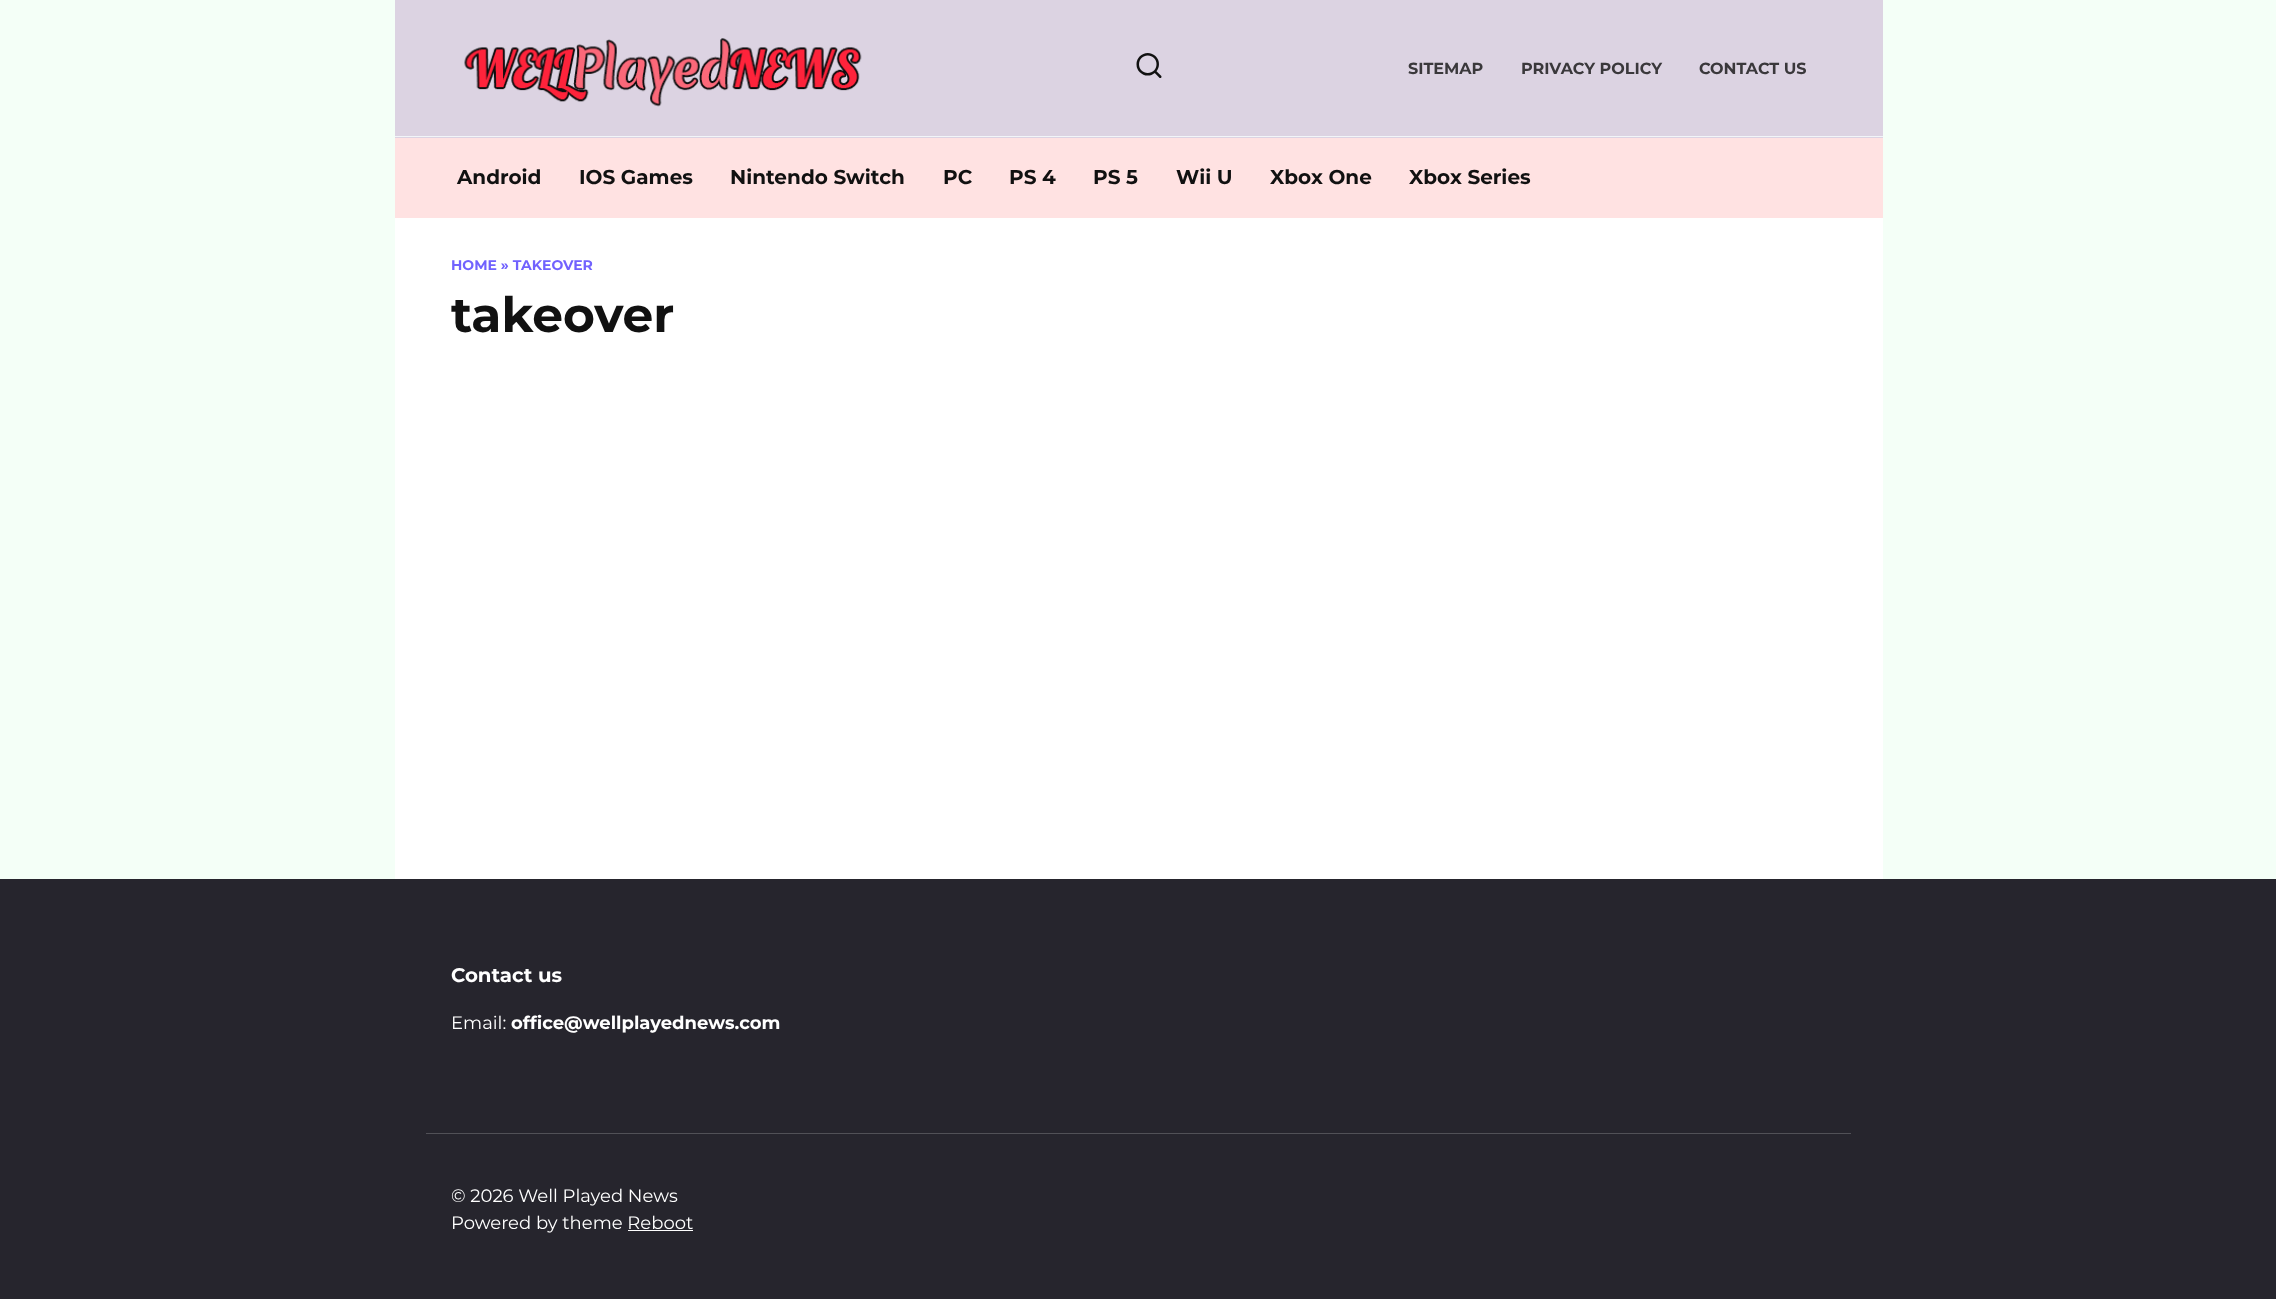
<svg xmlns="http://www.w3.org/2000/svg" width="2276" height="1299">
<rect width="100%" height="100%" fill="#f4fff7"/>
<rect x="395" width="1488" height="138" fill="#dcd3e2"/>
<rect x="395" y="136" width="1488" height="1" fill="#f2f5f9"/>
<image x="464" y="38" width="398" height="69" href="media/1.png"/>
<text x="1134" y="78" style="font-family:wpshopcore;font-size:30px;fill:#111">🔍</text>
<text x="1408" y="74" style="font-family:Montserrat;font-size:16px;font-weight:bold;fill:#3a383b">SITEMAP</text>
<text x="1521" y="74" style="font-family:Montserrat;font-size:16px;font-weight:bold;fill:#3a383b">PRIVACY POLICY</text>
<text x="1699" y="74" style="font-family:Montserrat;font-size:16px;font-weight:bold;fill:#3a383b">CONTACT US</text>
<rect x="395" y="138" width="1488" height="80" fill="#ffe2e2"/>
<text x="457" y="184" style="font-family:Montserrat;font-size:20px;font-weight:bold;fill:#111">Android</text>
<text x="579" y="184" style="font-family:Montserrat;font-size:20px;font-weight:bold;fill:#111">IOS Games</text>
<text x="730" y="184" style="font-family:Montserrat;font-size:20px;font-weight:bold;fill:#111">Nintendo Switch</text>
<text x="943" y="184" style="font-family:Montserrat;font-size:20px;font-weight:bold;fill:#111">PC</text>
<text x="1009" y="184" style="font-family:Montserrat;font-size:20px;font-weight:bold;fill:#111">PS 4</text>
<text x="1093" y="184" style="font-family:Montserrat;font-size:20px;font-weight:bold;fill:#111">PS 5</text>
<text x="1176" y="184" style="font-family:Montserrat;font-size:20px;font-weight:bold;fill:#111">Wii U</text>
<text x="1270" y="184" style="font-family:Montserrat;font-size:20px;font-weight:bold;fill:#111">Xbox One</text>
<text x="1409" y="184" style="font-family:Montserrat;font-size:20px;font-weight:bold;fill:#111">Xbox Series</text>
<rect x="395" y="218" width="1488" height="661" fill="#fff"/>
<text x="451" y="270" style="font-family:Montserrat;font-size:14px;font-weight:bold;fill:#7162fe">HOME » TAKEOVER</text>
<text x="451" y="332" style="font-family:Montserrat;font-size:48.75px;font-weight:bold;fill:#111">takeover</text>
<rect y="879" width="2276" height="420" fill="#26252d"/>
<rect x="426" y="1133" width="1425" height="1" fill="#515157"/>
<text x="451" y="982" style="font-family:Montserrat;font-size:19.75px;font-weight:bold;fill:#fff">Contact us</text>
<text x="451" y="1029" style="font-family:Montserrat;font-size:18px;fill:#fff">Email:</text>
<text x="511" y="1029" style="font-family:Montserrat;font-size:18px;font-weight:bold;fill:#fff">office@wellplayednews.com</text>
<text x="451" y="1202" style="font-family:Montserrat;font-size:18px;fill:#fff">© 2026 Well Played News</text>
<text x="451" y="1229" style="font-family:Montserrat;font-size:18px;fill:#fff">Powered by theme Reboot</text>
<rect x="628" y="1230" width="65" height="1" fill="#fff"/>
</svg>
